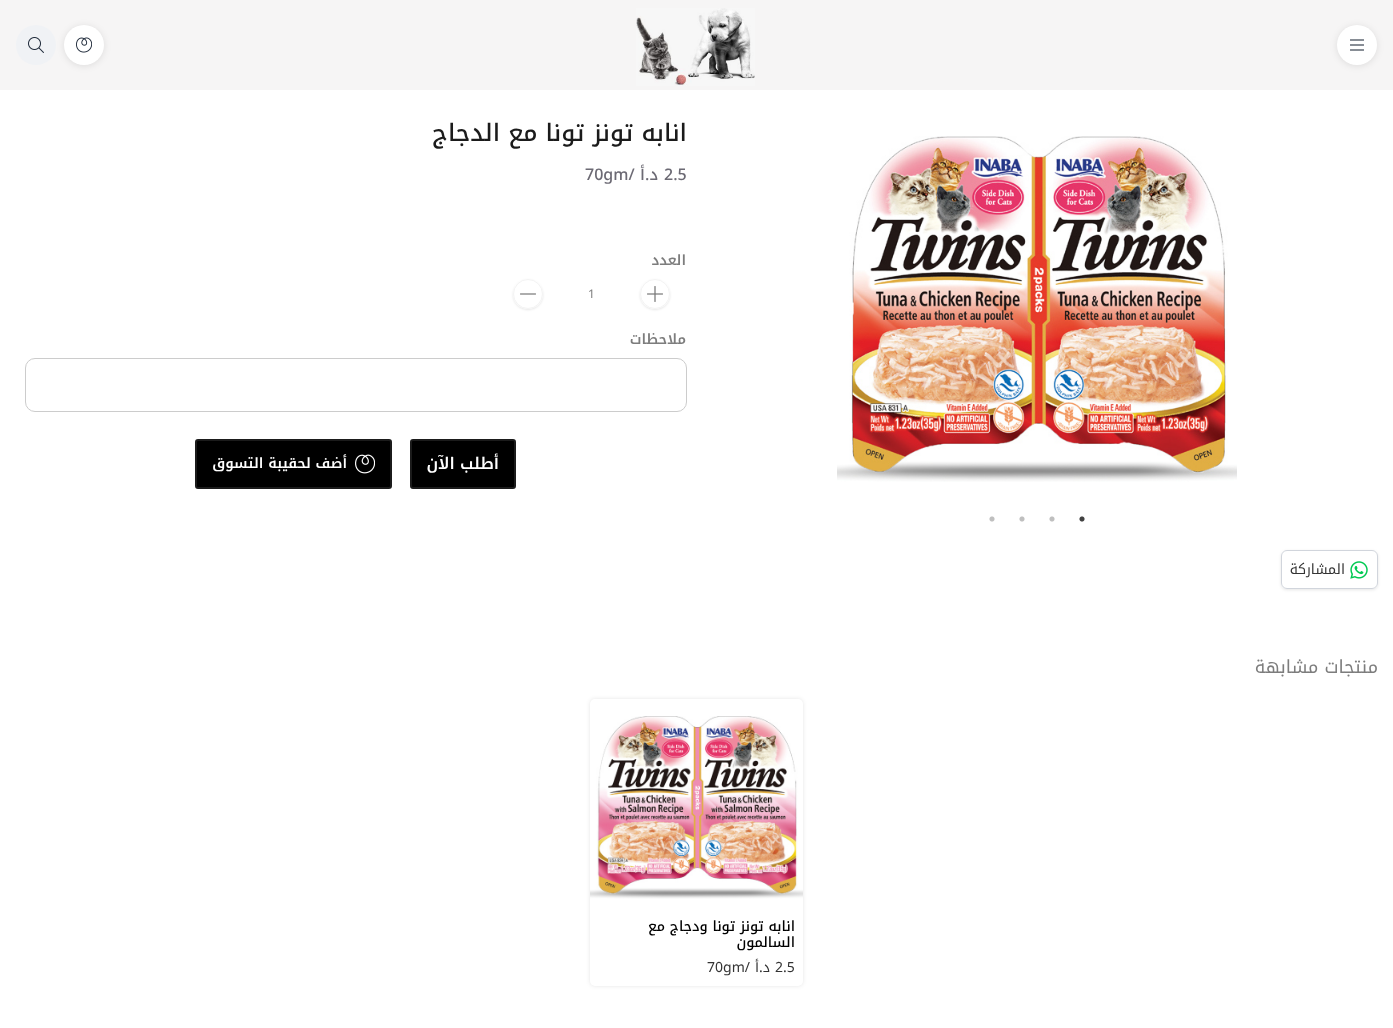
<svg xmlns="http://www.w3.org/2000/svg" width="1393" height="1028">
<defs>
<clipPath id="clip1"><path d="M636 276h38v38h-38zm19 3c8.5 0 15 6.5 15 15c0 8.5-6.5 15-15 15c-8.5 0-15-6.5-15-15c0-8.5 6.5-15 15-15z" clip-rule="evenodd"/></clipPath>
<clipPath id="clip2"><path d="M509 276h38v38h-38zm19 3c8.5 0 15 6.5 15 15c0 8.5-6.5 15-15 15c-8.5 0-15-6.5-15-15c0-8.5 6.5-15 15-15z" clip-rule="evenodd"/></clipPath>
<clipPath id="clip3"><path d="M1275 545h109v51h-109zm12 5h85c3.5 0 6 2.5 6 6v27c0 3.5-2.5 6-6 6h-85c-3.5 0-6-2.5-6-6v-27c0-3.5 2.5-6 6-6z" clip-rule="evenodd"/></clipPath>
</defs>
<rect width="100%" height="100%" fill="#fff"/>
<rect width="1393" height="90" fill="#f6f5f5"/>
<rect x="1337" y="26" width="40" height="40" rx="20" fill="#0000001a" filter="blur(3.5px)"/>
<circle cx="1357" cy="45" r="20" fill="#fff"/>
<image x="1350" y="39" width="14" height="12" href="media/1.png"/>
<image x="636" y="8" width="119" height="78" href="media/2.png"/>
<rect x="64" y="26" width="40" height="40" rx="20" fill="#0000001a" filter="blur(3.5px)"/>
<circle cx="84" cy="45" r="20" fill="#fff"/>
<image x="76" y="37" width="16" height="16" href="media/3.png"/>
<circle cx="36" cy="45" r="20" fill="#f0f2f5"/>
<image x="28" y="37" width="16" height="16" href="media/4.png"/>
<image x="837" y="136" width="400" height="346" href="media/5.png"/>
<image x="1079" y="516" width="6" height="6" href="media/6.png"/>
<image x="1049" y="516" width="6" height="6" href="media/7.png"/>
<image x="1019" y="516" width="6" height="6" href="media/7.png"/>
<image x="989" y="516" width="6" height="6" href="media/7.png"/>
<text x="687" y="141" style="font-family:Noto Kufi Arabic;font-size:24px;font-weight:500;direction:rtl;fill:#1b1b1b">انابه تونز تونا مع الدجاج</text>
<text x="664" y="180" style="font-family:Noto Kufi Arabic;font-size:16px;font-weight:500;fill:#6c6a74">2.5</text>
<text x="658" y="180" style="font-family:Noto Kufi Arabic;font-size:16px;font-weight:500;direction:rtl;fill:#6c6a74">د.أ</text>
<text x="585" y="180" style="font-family:Noto Kufi Arabic;font-size:16px;font-weight:500;fill:#6c6a74">70gm/</text>
<text x="686" y="265" style="font-family:Noto Kufi Arabic;font-size:14px;font-weight:600;direction:rtl;fill:#7d7d7d">العدد</text>
<g clip-path="url(#clip1)">
<rect x="640" y="280" width="30" height="30" rx="15" fill="#0000001a" filter="blur(1px)"/>
</g>
<circle cx="655" cy="294" r="14.5" fill="none" stroke="#f3f3f3"/>
<image x="647" y="286" width="16" height="16" href="media/8.png"/>
<text x="588" y="298" style="font-family:Noto Kufi Arabic;font-size:12px;fill:#7d7d7d">1</text>
<g clip-path="url(#clip2)">
<rect x="513" y="280" width="30" height="30" rx="15" fill="#0000001a" filter="blur(1px)"/>
</g>
<circle cx="528" cy="294" r="14.5" fill="none" stroke="#f3f3f3"/>
<image x="520" y="293" width="16" height="2" href="media/9.png"/>
<text x="686" y="344" style="font-family:Noto Kufi Arabic;font-size:14px;font-weight:600;direction:rtl;fill:#7d7d7d">ملاحظات</text>
<rect x="25.5" y="358.5" width="661" height="53" rx="9.5" fill="none" stroke="#ccc"/>
<rect x="411" y="440" width="104" height="48" rx="2" fill="#000" stroke="#1b1b1b" stroke-width="2"/>
<text x="499" y="469" style="font-family:Noto Kufi Arabic;font-size:16px;font-weight:600;direction:rtl;fill:#fff">أطلب الآن</text>
<rect x="196" y="440" width="195" height="48" rx="2" fill="#000" stroke="#1b1b1b" stroke-width="2"/>
<image x="355" y="454" width="20" height="20" href="media/10.png"/>
<text x="347" y="468" style="font-family:Noto Kufi Arabic;font-size:14px;font-weight:600;direction:rtl;fill:#fff">أضف لحقيبة التسوق</text>
<g clip-path="url(#clip3)">
<rect x="1281" y="551" width="97" height="39" rx="6" fill="#0000001a" filter="blur(1.5px)"/>
</g>
<rect x="1281.5" y="550.5" width="96" height="38" rx="5.5" fill="none" stroke="#d1d5dc"/>
<image x="1350" y="561" width="18" height="18" href="media/11.png"/>
<text x="1345" y="574" style="font-family:Noto Kufi Arabic;font-size:14px;direction:rtl;fill:#333">المشاركة</text>
<text x="1378" y="673" style="font-family:Noto Kufi Arabic;font-size:18px;direction:rtl;fill:#7d7d7d">منتجات مشابهة</text>
<rect x="590" y="699" width="213" height="287" rx="5" fill="#0000001a" filter="blur(2px)"/>
<rect x="590" y="699" width="213" height="287" rx="5" fill="#fff"/>
<image x="590" y="716" width="213" height="183" href="media/12.png"/>
<text x="795" y="931" style="font-family:Noto Kufi Arabic;font-size:14px;font-weight:500;direction:rtl;fill:#000">انابه تونز تونا ودجاج مع</text>
<text x="795" y="947" style="font-family:Noto Kufi Arabic;font-size:14px;font-weight:500;direction:rtl;fill:#000">السالمون</text>
<text x="775" y="972" style="font-family:Noto Kufi Arabic;font-size:14px;fill:#333">2.5</text>
<text x="770" y="972" style="font-family:Noto Kufi Arabic;font-size:14px;direction:rtl;fill:#333">د.أ</text>
<text x="707" y="972" style="font-family:Noto Kufi Arabic;font-size:14px;fill:#333">70gm/</text>
</svg>
